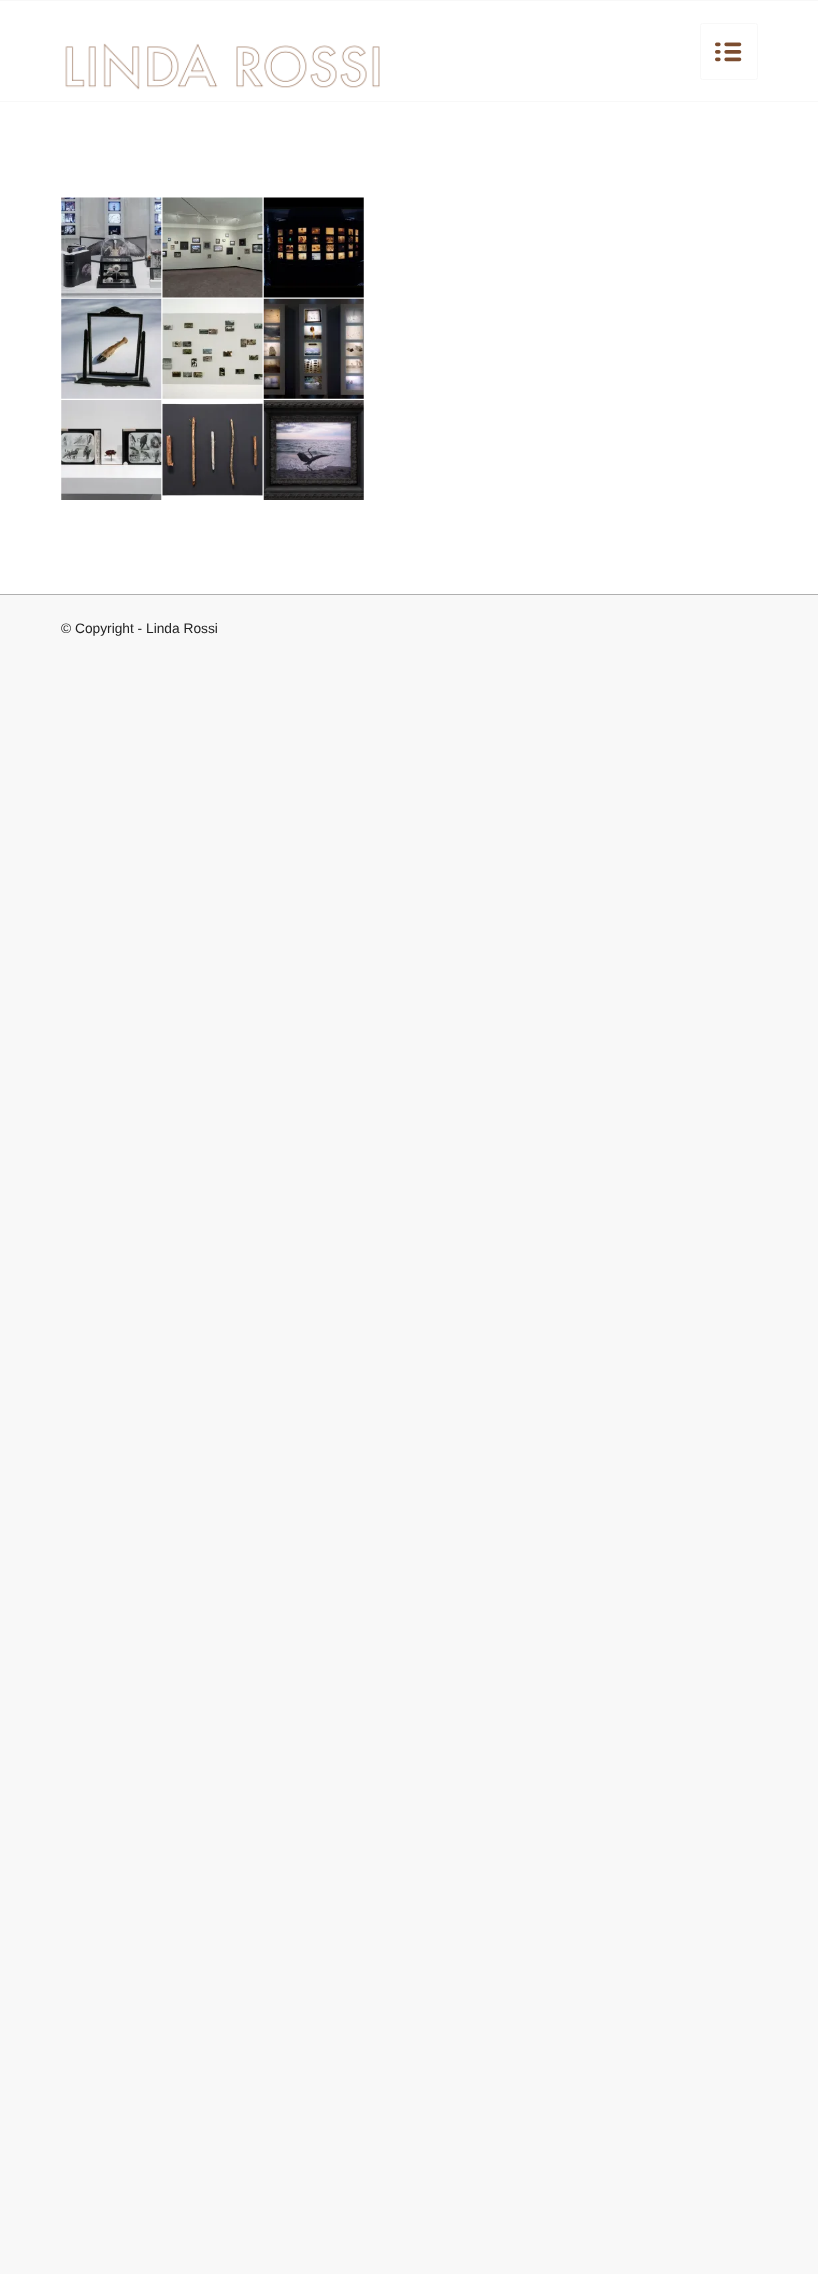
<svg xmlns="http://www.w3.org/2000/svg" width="818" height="2274">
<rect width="100%" height="100%" fill="#f8f8f8"/>
<rect y="1" width="818" height="593" fill="#fff"/>
<rect y="101" width="818" height="1" fill="#f8f8f8"/>
<image x="65" y="43" width="315" height="47" href="media/1.png"/>
<rect x="700.5" y="23.5" width="57" height="56" rx="2" fill="none" stroke="#f8f8f8"/>
<image x="715" y="42" width="27" height="20" href="media/2.png"/>
<image x="61" y="197" width="101" height="101" href="media/3.png"/>
<image x="162" y="197" width="101" height="101" href="media/4.png"/>
<image x="263" y="197" width="101" height="101" href="media/5.png"/>
<image x="61" y="298" width="101" height="101" href="media/6.png"/>
<image x="162" y="298" width="101" height="101" href="media/7.png"/>
<image x="263" y="298" width="101" height="101" href="media/8.png"/>
<image x="61" y="400" width="101" height="100" href="media/9.png"/>
<image x="162" y="403" width="101" height="93" href="media/10.png"/>
<image x="263" y="400" width="101" height="100" href="media/11.png"/>
<rect y="594" width="818" height="1" fill="#b0b0b0"/>
<text x="61" y="633" style="font-family:Liberation Sans;font-size:13.75px;fill:#222">© Copyright - Linda Rossi</text>
</svg>
